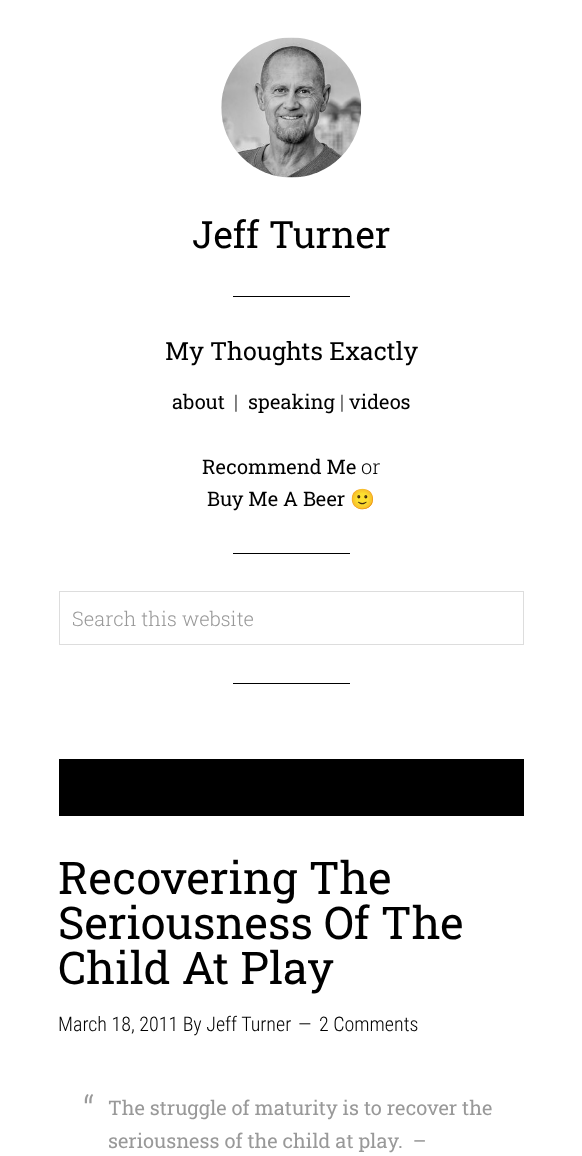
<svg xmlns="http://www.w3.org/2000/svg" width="582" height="1156">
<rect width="100%" height="100%" fill="#fff"/>
<image x="221" y="37" width="141" height="141" href="media/1.png"/>
<text x="192" y="248" style="font-family:Roboto Slab;font-size:37.5px;fill:#000">Jeff Turner</text>
<rect x="233" y="296" width="117" height="1" fill="#000"/>
<text x="165" y="360" style="font-family:Roboto Slab;font-size:25px;fill:#000">My Thoughts Exactly</text>
<text x="172" y="409" style="font-family:Roboto Slab;font-size:20px;fill:#000">about</text>
<text x="234" y="409" style="font-family:Roboto Slab;font-size:20px;font-weight:300;fill:#000">|</text>
<text x="248" y="409" style="font-family:Roboto Slab;font-size:20px;fill:#000">speaking</text>
<text x="340" y="409" style="font-family:Roboto Slab;font-size:20px;font-weight:300;fill:#000">|</text>
<text x="349" y="409" style="font-family:Roboto Slab;font-size:20px;fill:#000">videos</text>
<text x="202" y="474" style="font-family:Roboto Slab;font-size:20px;fill:#000">Recommend Me</text>
<text x="361" y="474" style="font-family:Roboto Slab;font-size:20px;font-weight:300;fill:#000">or</text>
<text x="207" y="506" style="font-family:Roboto Slab;font-size:20px;fill:#000">Buy Me A Beer</text>
<text x="350" y="506" style="font-family:Noto Color Emoji;font-size:20px;fill:#000">🙂</text>
<rect x="233" y="553" width="117" height="1" fill="#000"/>
<rect x="59.5" y="591.5" width="464" height="53" fill="none" stroke="#ddd"/>
<text x="72" y="626" style="font-family:Roboto Slab;font-size:20px;font-weight:300;fill:#999">Search this website</text>
<rect x="233" y="683" width="117" height="1" fill="#000"/>
<rect x="59" y="759" width="465" height="57" fill="#000"/>
<text x="58" y="894" style="font-family:Roboto Slab;font-size:45px;fill:#000">Recovering The</text>
<text x="58" y="939" style="font-family:Roboto Slab;font-size:45px;fill:#000">Seriousness Of The</text>
<text x="58" y="984" style="font-family:Roboto Slab;font-size:45px;fill:#000">Child At Play</text>
<text x="58" y="1031" style="font-family:Roboto Condensed;font-size:20px;font-weight:300;fill:#000">March 18, 2011 By Jeff Turner</text>
<text x="298" y="1031" style="font-family:Roboto Condensed;font-size:20px;font-weight:300;fill:#000">—</text>
<text x="319" y="1031" style="font-family:Roboto Condensed;font-size:20px;font-weight:300;fill:#000">2 Comments</text>
<text x="83" y="1123" style="font-family:Roboto Slab;font-size:37.5px;font-weight:300;fill:#999">“</text>
<text x="108" y="1115" style="font-family:Roboto Slab;font-size:20px;fill:#999">The struggle of maturity is to recover the</text>
<text x="108" y="1148" style="font-family:Roboto Slab;font-size:20px;fill:#999" xml:space="preserve">seriousness of the child at play.  –</text>
</svg>
